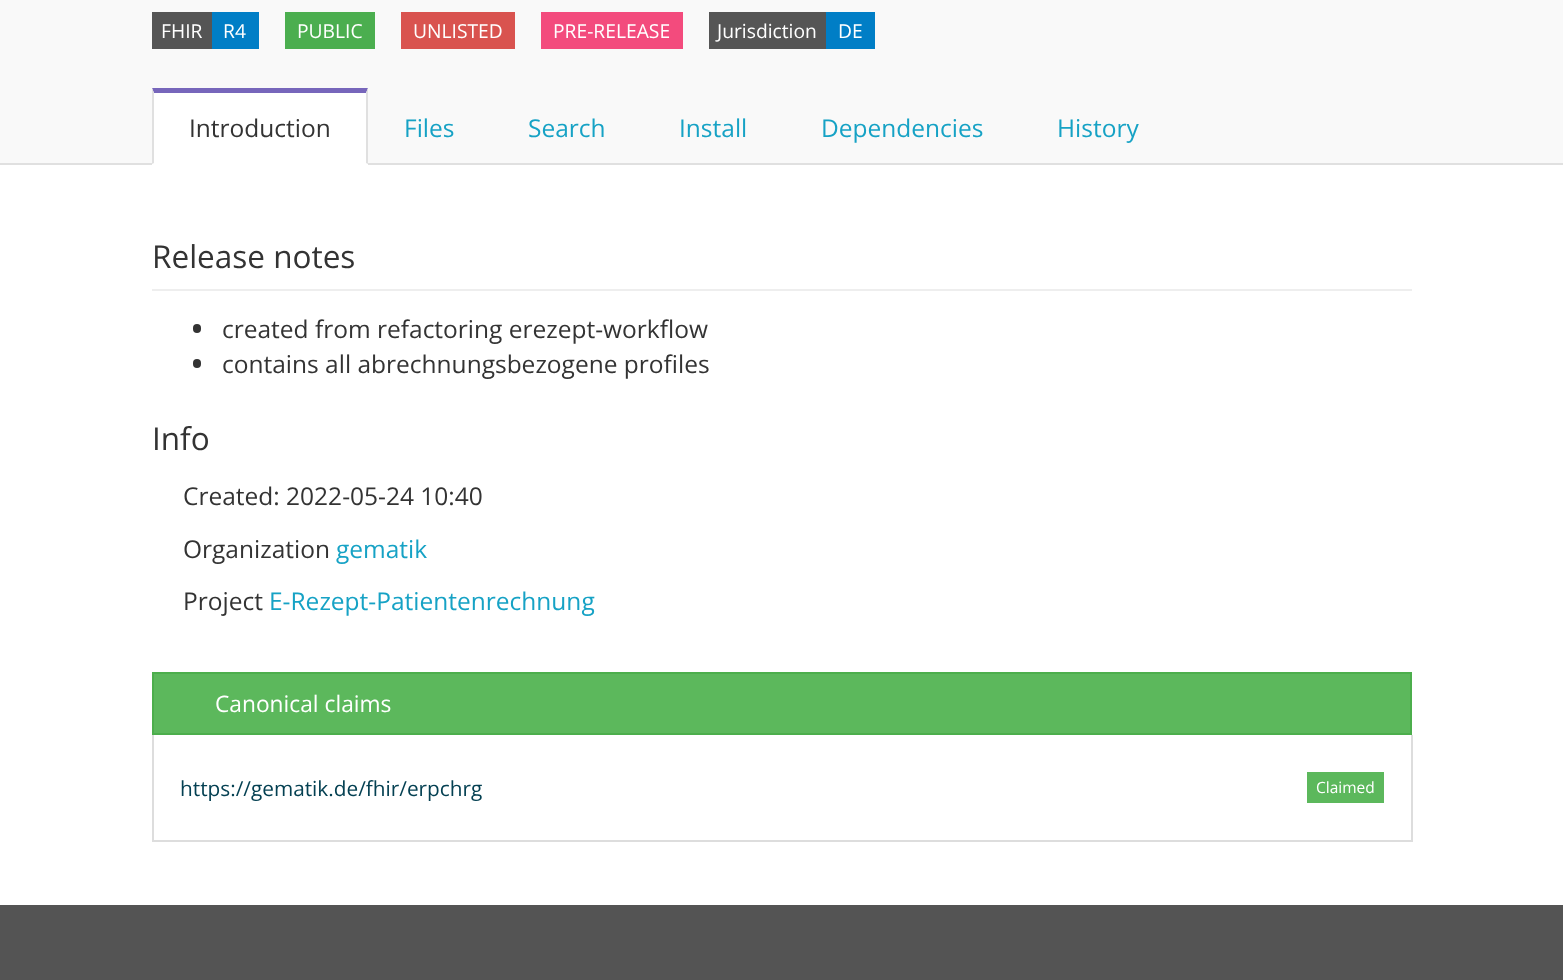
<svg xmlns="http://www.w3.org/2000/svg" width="1563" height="980">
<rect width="100%" height="100%" fill="#fff"/>
<rect width="1563" height="163" fill="#f9f9f9"/>
<rect y="163" width="1563" height="2" fill="#e0e0e0"/>
<rect x="152" y="12" width="60" height="37" fill="#555"/>
<text x="161" y="38" style="font-family:Open Sans;font-size:19.25px;fill:#fff">FHIR</text>
<rect x="212" y="12" width="47" height="37" fill="#007ec6"/>
<text x="223" y="38" style="font-family:Open Sans;font-size:19.25px;fill:#fff">R4</text>
<rect x="285" y="12" width="90" height="37" fill="#4bae4f"/>
<text x="297" y="38" style="font-family:Open Sans;font-size:19.25px;fill:#fff">PUBLIC</text>
<rect x="401" y="12" width="114" height="37" fill="#d9534f"/>
<text x="413" y="38" style="font-family:Open Sans;font-size:19.25px;fill:#fff">UNLISTED</text>
<rect x="541" y="12" width="142" height="37" fill="#f34b7d"/>
<text x="553" y="38" style="font-family:Open Sans;font-size:19.25px;fill:#fff">PRE-RELEASE</text>
<rect x="709" y="12" width="117" height="37" fill="#555"/>
<text x="717" y="38" style="font-family:Open Sans;font-size:19.25px;fill:#fff">Jurisdiction</text>
<rect x="826" y="12" width="49" height="37" fill="#007ec6"/>
<text x="838" y="38" style="font-family:Open Sans;font-size:19.25px;fill:#fff">DE</text>
<rect x="152" y="88" width="216" height="77" fill="#fff"/>
<path d="M152 88h216l-2 5h-212z" fill="#76b"/>
<path d="M368 88v76l-2-1v-70z" fill="#e0e0e0"/>
<path d="M152 164v-76l2 5v70z" fill="#e0e0e0"/>
<text x="189" y="137" style="font-family:Open Sans;font-size:24.5px;fill:#333">Introduction</text>
<text x="404" y="137" style="font-family:Open Sans;font-size:24.5px;fill:#16a2c5">Files</text>
<text x="528" y="137" style="font-family:Open Sans;font-size:24.5px;fill:#16a2c5">Search</text>
<text x="679" y="137" style="font-family:Open Sans;font-size:24.5px;fill:#16a2c5">Install</text>
<text x="821" y="137" style="font-family:Open Sans;font-size:24.5px;fill:#16a2c5">Dependencies</text>
<text x="1057" y="137" style="font-family:Open Sans;font-size:24.5px;fill:#16a2c5">History</text>
<rect x="152" y="289" width="1260" height="2" fill="#eee"/>
<text x="152" y="268" style="font-family:Open Sans;font-size:31.5px;fill:#333">Release notes</text>
<rect x="193" y="324" width="8" height="9" rx="4" fill="#333"/>
<text x="222" y="338" style="font-family:Open Sans;font-size:24.5px;fill:#333">created from refactoring erezept-workflow</text>
<rect x="193" y="359" width="8" height="9" rx="4" fill="#333"/>
<text x="222" y="373" style="font-family:Open Sans;font-size:24.5px;fill:#333">contains all abrechnungsbezogene profiles</text>
<text x="152" y="450" style="font-family:Open Sans;font-size:31.5px;fill:#333">Info</text>
<text x="183" y="505" style="font-family:Open Sans;font-size:24.5px;fill:#333">Created: 2022-05-24 10:40</text>
<text x="183" y="558" style="font-family:Open Sans;font-size:24.5px;fill:#333">Organization</text>
<text x="336" y="558" style="font-family:Open Sans;font-size:24.5px;fill:#16a2c5">gematik</text>
<text x="183" y="610" style="font-family:Open Sans;font-size:24.5px;fill:#333">Project</text>
<text x="269" y="610" style="font-family:Open Sans;font-size:24.5px;fill:#16a2c5">E-Rezept-Patientenrechnung</text>
<rect x="153" y="673" width="1258" height="61" fill="#5cb85c" stroke="#4cae4c" stroke-width="2"/>
<text x="215" y="712" style="font-family:Open Sans;font-size:22.75px;fill:#fff">Canonical claims</text>
<rect x="1411" y="735" width="2" height="107" fill="#ddd"/>
<rect x="152" y="840" width="1260" height="2" fill="#ddd"/>
<rect x="152" y="735" width="2" height="107" fill="#ddd"/>
<text x="180" y="796" style="font-family:Open Sans;font-size:20.8px;fill:#044052">https://gematik.de/fhir/erpchrg</text>
<rect x="1307" y="772" width="77" height="31" fill="#5cb85c"/>
<text x="1316" y="793" style="font-family:Open Sans;font-size:15.5px;fill:#fff">Claimed</text>
<rect y="905" width="1563" height="75" fill="#545454"/>
</svg>
